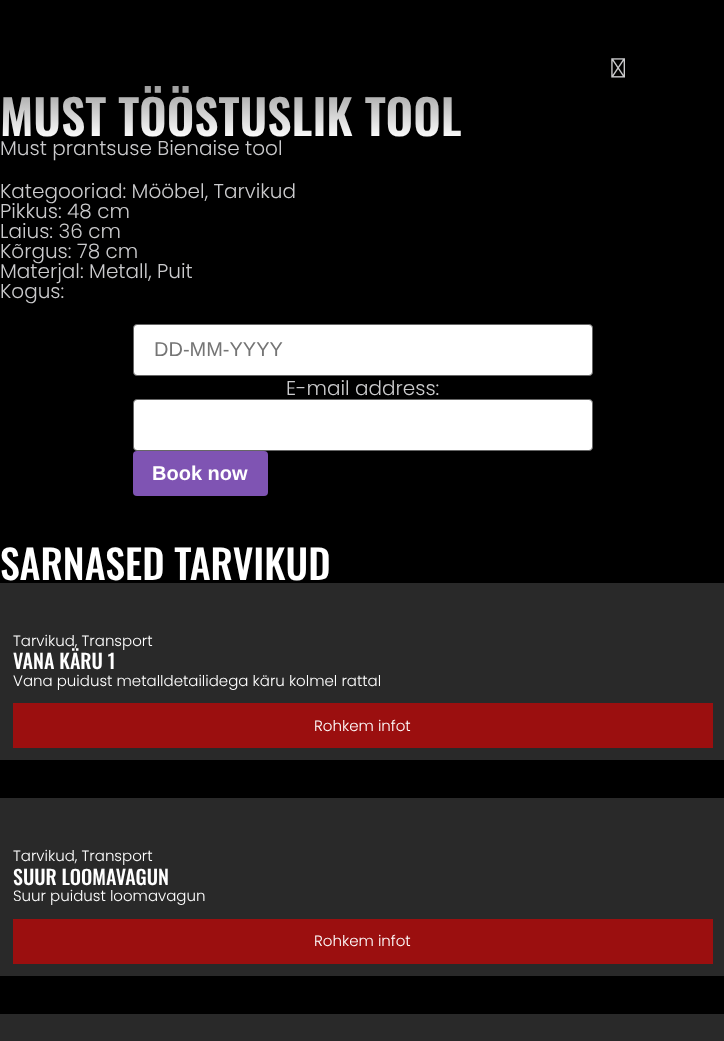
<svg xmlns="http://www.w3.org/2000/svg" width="724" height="1041">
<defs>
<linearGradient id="g1" gradientUnits="userSpaceOnUse" x1="363" y1="0" x2="363" y2="139"><stop offset="0" stop-color="#000"/><stop offset="1" stop-color="#000" stop-opacity="0"/></linearGradient>
</defs>
<rect width="100%" height="100%" fill="#000"/>
<text x="0" y="136" style="font-family:Oswald;font-size:48px;font-weight:600;fill:#fff">MUST TÖÖSTUSLIK TOOL</text>
<rect x="3" y="86" width="458" height="50" fill="url(#g1)"/>
<image x="611" y="58" width="14" height="20" href="media/1.png"/>
<text x="0" y="155" style="font-family:Poppins;font-size:20px;font-weight:300;fill:#cbcbcd">Must prantsuse Bienaise tool</text>
<text x="0" y="198" style="font-family:Poppins;font-size:20px;font-weight:300;fill:#cbcbcd">Kategooriad: Mööbel, Tarvikud</text>
<text x="0" y="218" style="font-family:Poppins;font-size:20px;font-weight:300;fill:#cbcbcd">Pikkus: 48 cm</text>
<text x="0" y="238" style="font-family:Poppins;font-size:20px;font-weight:300;fill:#cbcbcd">Laius: 36 cm</text>
<text x="0" y="258" style="font-family:Poppins;font-size:20px;font-weight:300;fill:#cbcbcd">Kõrgus: 78 cm</text>
<text x="0" y="278" style="font-family:Poppins;font-size:20px;font-weight:300;fill:#cbcbcd">Materjal: Metall, Puit</text>
<text x="0" y="298" style="font-family:Poppins;font-size:20px;font-weight:300;fill:#cbcbcd">Kogus:</text>
<rect x="133.5" y="324.5" width="459" height="51" rx="3.5" fill="#fff" stroke="#666"/>
<text x="154" y="356" style="font-family:Liberation Sans;font-size:20px;fill:#757575">DD-MM-YYYY</text>
<text x="286" y="395" style="font-family:Poppins;font-size:20px;font-weight:300;fill:#cbcbcd">E-mail address:</text>
<rect x="133.5" y="399.5" width="459" height="51" rx="3.5" fill="#fff" stroke="#666"/>
<rect x="133" y="451" width="135" height="45" rx="4" fill="#7f54b3"/>
<text x="152" y="480" style="font-family:Liberation Sans;font-size:20px;font-weight:bold;fill:#fff">Book now</text>
<text x="0" y="580" style="font-family:Oswald;font-size:40px;font-weight:500;fill:#fff">SARNASED TARVIKUD</text>
<rect y="583" width="724" height="177" fill="#292929"/>
<text x="13" y="646" style="font-family:Poppins;font-size:15px;font-weight:300;fill:#fff">Tarvikud, Transport</text>
<text x="13" y="669" style="font-family:Oswald;font-size:20px;font-weight:500;fill:#fff">VANA KÄRU 1</text>
<text x="13" y="686" style="font-family:Poppins;font-size:15px;font-weight:300;fill:#fff">Vana puidust metalldetailidega käru kolmel rattal</text>
<rect x="13" y="703" width="700" height="45" fill="#9b0f0f"/>
<text x="314" y="731" style="font-family:Poppins;font-size:15px;font-weight:300;fill:#fff">Rohkem infot</text>
<rect y="798" width="724" height="178" fill="#292929"/>
<text x="13" y="861" style="font-family:Poppins;font-size:15px;font-weight:300;fill:#fff">Tarvikud, Transport</text>
<text x="13" y="885" style="font-family:Oswald;font-size:20px;font-weight:500;fill:#fff">SUUR LOOMAVAGUN</text>
<text x="13" y="901" style="font-family:Poppins;font-size:15px;font-weight:300;fill:#fff">Suur puidust loomavagun</text>
<rect x="13" y="919" width="700" height="45" fill="#9b0f0f"/>
<text x="314" y="946" style="font-family:Poppins;font-size:15px;font-weight:300;fill:#fff">Rohkem infot</text>
<rect y="1014" width="724" height="27" fill="#292929"/>
</svg>
